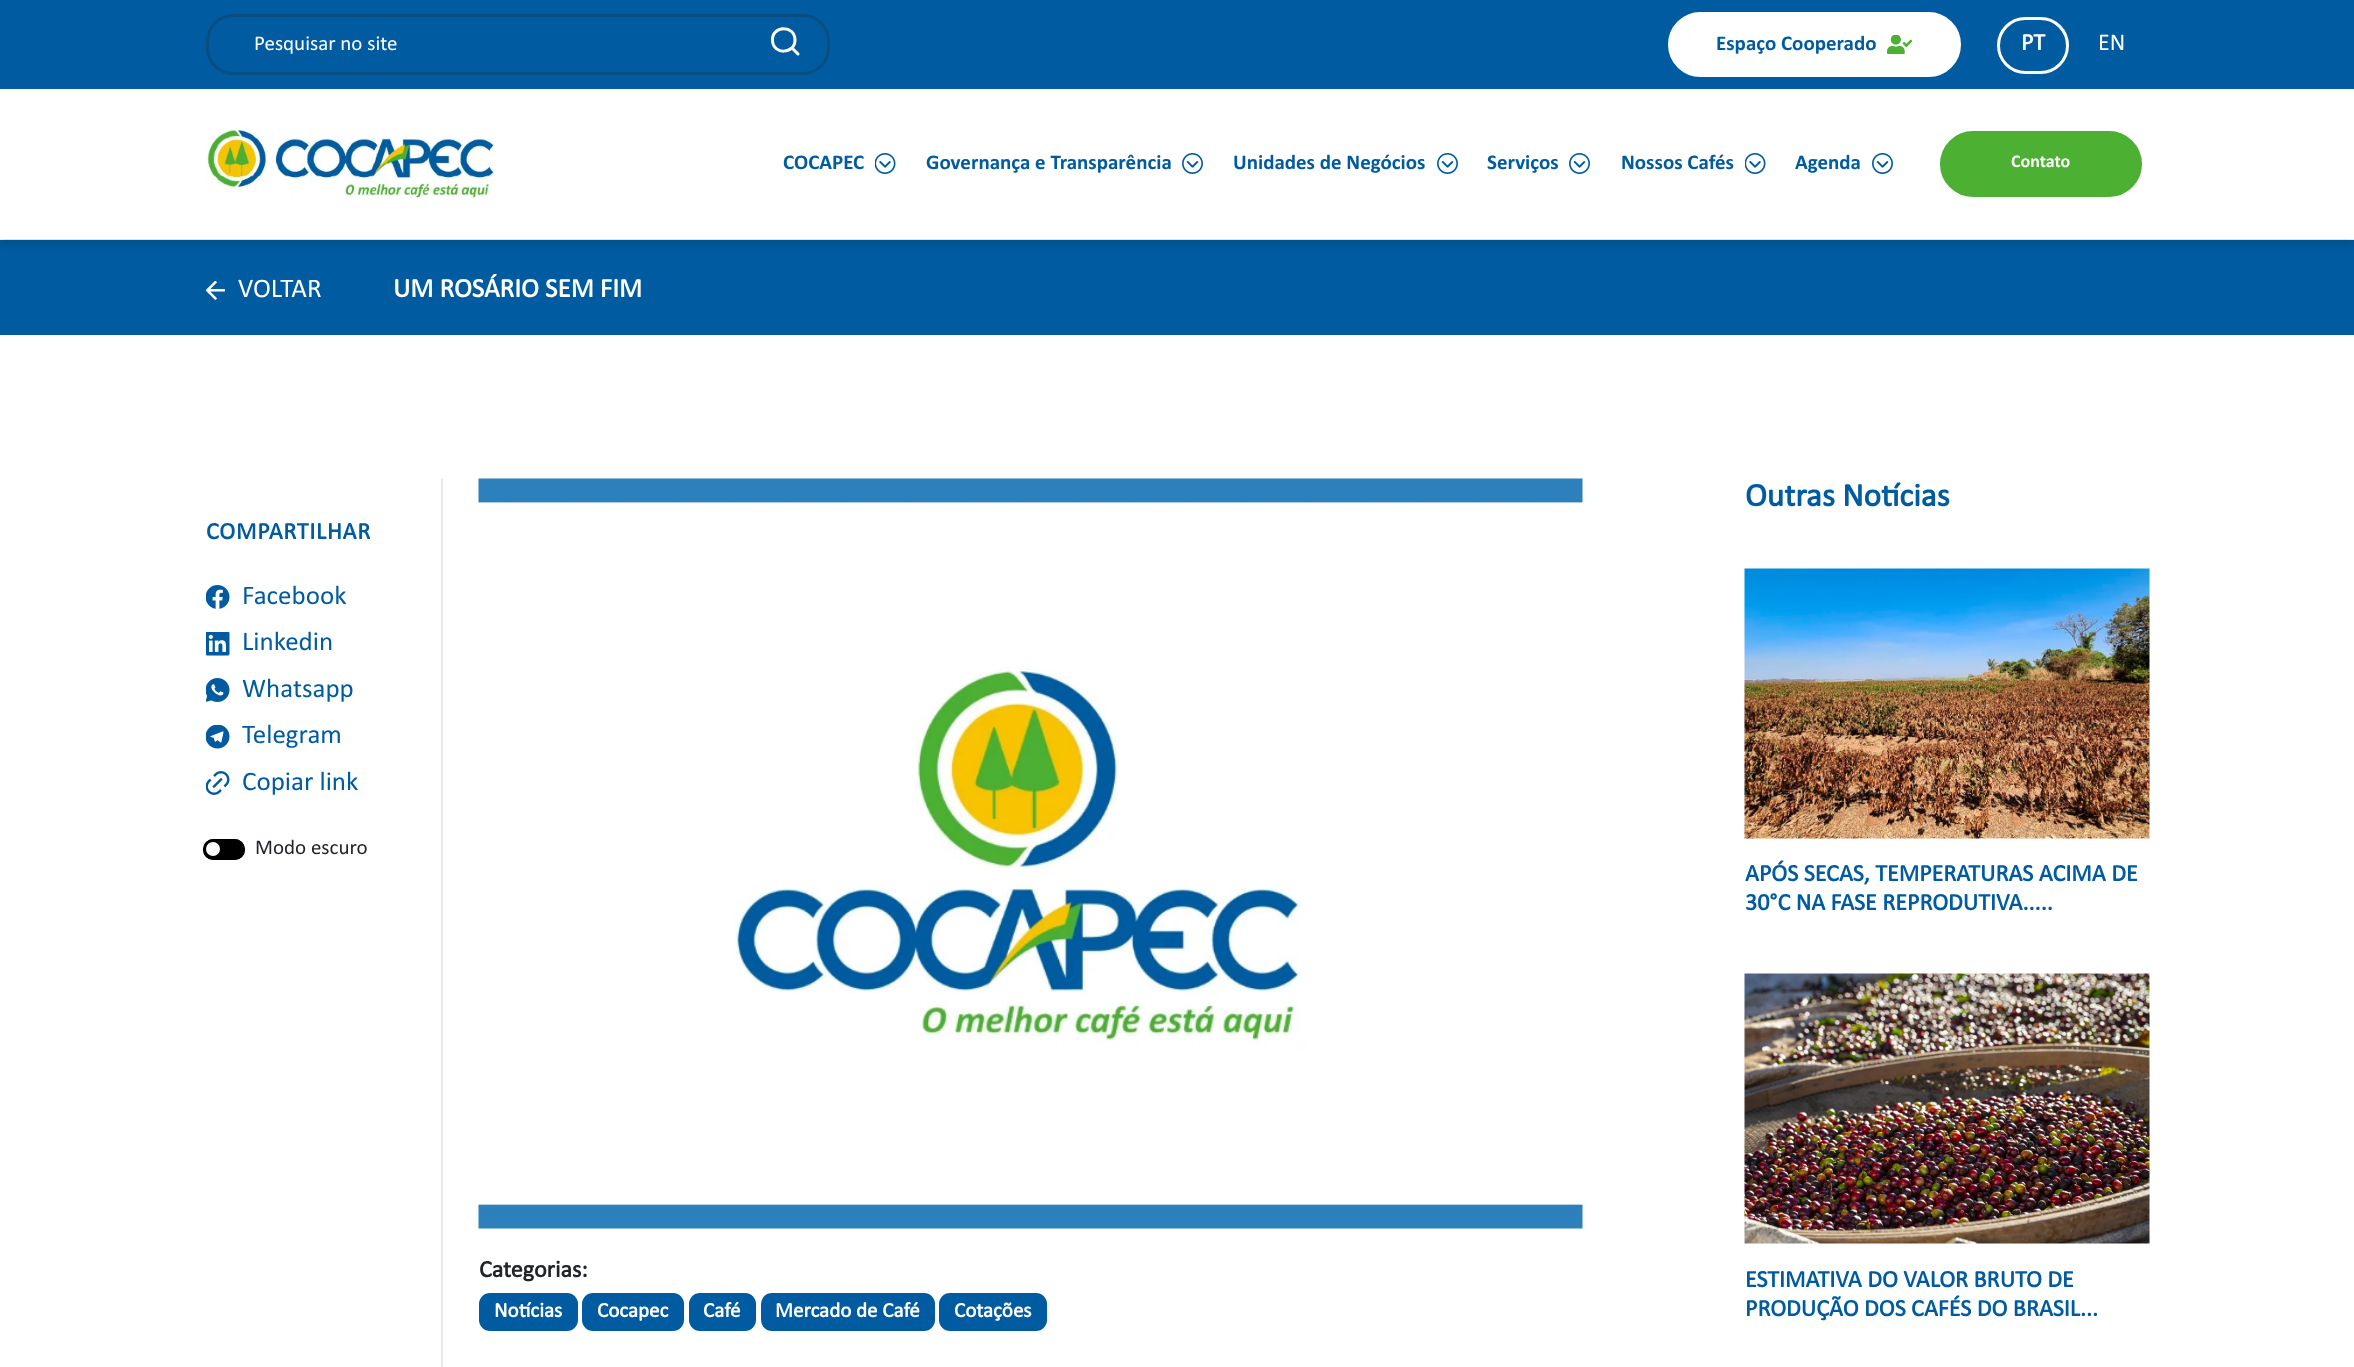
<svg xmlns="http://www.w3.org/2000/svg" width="2354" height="1367">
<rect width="100%" height="100%" fill="#fff"/>
<rect y="240" width="2354" height="95" fill="#005ba0"/>
<rect y="5" width="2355" height="238" fill="#00000029" filter="blur(4.5px)"/>
<rect y="89" width="2354" height="150" fill="#fff"/>
<rect width="2354" height="89" fill="#005ba0"/>
<rect x="207.5" y="15.5" width="621" height="58" rx="25.5" fill="none" stroke="#094e82" stroke-width="3"/>
<text x="254" y="50" style="font-family:Calibri;font-size:21px;fill:#fff">Pesquisar no site</text>
<path d="M795 40c0 14.5-22 15-22.5 .5c-1-15 22.5-16 22.5-.5zm3 14l-6-6" fill="none" stroke="#fff" stroke-width="3" stroke-linecap="round" stroke-linejoin="round"/>
<rect x="1669.5" y="13.5" width="290" height="62" rx="31" fill="#fff" stroke="#fff" stroke-width="3"/>
<text x="1716" y="50" style="font-family:'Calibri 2';font-size:21px;font-weight:bold;fill:#005ba0">Espaço Cooperado</text>
<image x="1887" y="35" width="26" height="19" href="media/1.png"/>
<rect x="1998.5" y="18.5" width="69" height="54" rx="27" fill="none" stroke="#fff" stroke-width="3"/>
<text x="2021" y="50" style="font-family:Calibri;font-size:24px;font-weight:bold;fill:#fff">PT</text>
<text x="2098" y="50" style="font-family:Calibri;font-size:24px;fill:#fff">EN</text>
<image x="206" y="126" width="288" height="73" href="media/2.png"/>
<text x="783" y="169" style="font-family:'Calibri 2';font-size:21px;font-weight:bold;fill:#005ba0">COCAPEC</text>
<image x="875" y="153" width="21" height="21" href="media/3.png"/>
<text x="926" y="169" style="font-family:'Calibri 2';font-size:21px;font-weight:bold;fill:#005ba0">Governança e Transparência</text>
<image x="1182" y="153" width="21" height="21" href="media/4.png"/>
<text x="1233" y="169" style="font-family:'Calibri 2';font-size:21px;font-weight:bold;fill:#005ba0">Unidades de Negócios</text>
<image x="1437" y="153" width="21" height="21" href="media/4.png"/>
<text x="1487" y="169" style="font-family:'Calibri 2';font-size:21px;font-weight:bold;fill:#005ba0">Serviços</text>
<image x="1569" y="153" width="21" height="21" href="media/4.png"/>
<text x="1621" y="169" style="font-family:'Calibri 2';font-size:21px;font-weight:bold;fill:#005ba0">Nossos Cafés</text>
<image x="1745" y="153" width="21" height="21" href="media/3.png"/>
<text x="1795" y="169" style="font-family:'Calibri 2';font-size:21px;font-weight:bold;fill:#005ba0">Agenda</text>
<image x="1872" y="153" width="21" height="21" href="media/4.png"/>
<rect x="1941.5" y="132.5" width="199" height="63" rx="31.5" fill="#4cb033" stroke="#4cb033" stroke-width="3"/>
<text x="2011" y="167" style="font-family:'Calibri 2';font-size:18px;font-weight:bold;fill:#fff">Contato</text>
<image x="206" y="281" width="19" height="19" href="media/5.png"/>
<text x="238" y="297" style="font-family:Calibri;font-size:27px;fill:#fff">VOLTAR</text>
<text x="393" y="297" style="font-family:Calibri;font-size:27px;font-weight:bold;fill:#fff">UM ROSÁRIO SEM FIM</text>
<rect x="441" y="479" width="2" height="888" fill="#e9e9e9"/>
<text x="206" y="539" style="font-family:Calibri;font-size:24px;font-weight:bold;letter-spacing:0.75px;fill:#005ba0">COMPARTILHAR</text>
<image x="206" y="585" width="24" height="24" href="media/6.png"/>
<text x="242" y="604" style="font-family:Calibri;font-size:27px;fill:#005ba0">Facebook</text>
<image x="206" y="632" width="24" height="24" href="media/7.png"/>
<text x="242" y="650" style="font-family:Calibri;font-size:27px;fill:#005ba0">Linkedin</text>
<image x="206" y="678" width="24" height="24" href="media/8.png"/>
<text x="242" y="697" style="font-family:Calibri;font-size:27px;fill:#005ba0">Whatsapp</text>
<image x="206" y="725" width="24" height="24" href="media/9.png"/>
<text x="242" y="743" style="font-family:Calibri;font-size:27px;fill:#005ba0">Telegram</text>
<image x="206" y="771" width="24" height="24" href="media/10.png"/>
<text x="242" y="790" style="font-family:Calibri;font-size:27px;fill:#005ba0">Copiar link</text>
<rect x="203" y="839" width="42" height="21" rx="10.5" fill="#000"/>
<circle cx="213" cy="849" r="7" fill="#fff"/>
<rect x="204" y="840" width="40" height="19" rx="9.5" fill="none" stroke="#000" stroke-width="2"/>
<text x="255" y="854" style="font-family:Calibri;font-size:21px;fill:#212529">Modo escuro</text>
<image x="478" y="478" width="1105" height="751" href="media/11.png"/>
<text x="479" y="1277" style="font-family:Calibri;font-size:24px;font-weight:bold;fill:#212529">Categorias:</text>
<rect x="479" y="1293" width="99" height="38" rx="11" fill="#005ba0"/>
<text x="494" y="1317" style="font-family:Calibri;font-size:21px;font-weight:bold;fill:#fff">Notícias</text>
<rect x="582" y="1293" width="102" height="38" rx="11" fill="#005ba0"/>
<text x="597" y="1317" style="font-family:Calibri;font-size:21px;font-weight:bold;fill:#fff">Cocapec</text>
<rect x="689" y="1293" width="67" height="38" rx="11" fill="#005ba0"/>
<text x="703" y="1317" style="font-family:Calibri;font-size:21px;font-weight:bold;fill:#fff">Café</text>
<rect x="761" y="1293" width="174" height="38" rx="11" fill="#005ba0"/>
<text x="775" y="1317" style="font-family:Calibri;font-size:21px;font-weight:bold;fill:#fff">Mercado de Café</text>
<rect x="939" y="1293" width="108" height="38" rx="11" fill="#005ba0"/>
<text x="954" y="1317" style="font-family:Calibri;font-size:21px;font-weight:bold;fill:#fff">Cotações</text>
<text x="1745" y="506" style="font-family:Calibri;font-size:33px;font-weight:bold;fill:#005ba0">Outras Notícias</text>
<image x="1744" y="568" width="406" height="271" href="media/12.png"/>
<text x="1745" y="881" style="font-family:Calibri;font-size:24px;font-weight:bold;fill:#005ba0">APÓS SECAS, TEMPERATURAS ACIMA DE</text>
<text x="1745" y="910" style="font-family:Calibri;font-size:24px;font-weight:bold;fill:#005ba0">30°C NA FASE REPRODUTIVA.....</text>
<image x="1744" y="973" width="406" height="271" href="media/13.png"/>
<text x="1745" y="1287" style="font-family:Calibri;font-size:24px;font-weight:bold;fill:#005ba0">ESTIMATIVA DO VALOR BRUTO DE</text>
<text x="1745" y="1316" style="font-family:Calibri;font-size:24px;font-weight:bold;fill:#005ba0">PRODUÇÃO DOS CAFÉS DO BRASIL...</text>
</svg>
